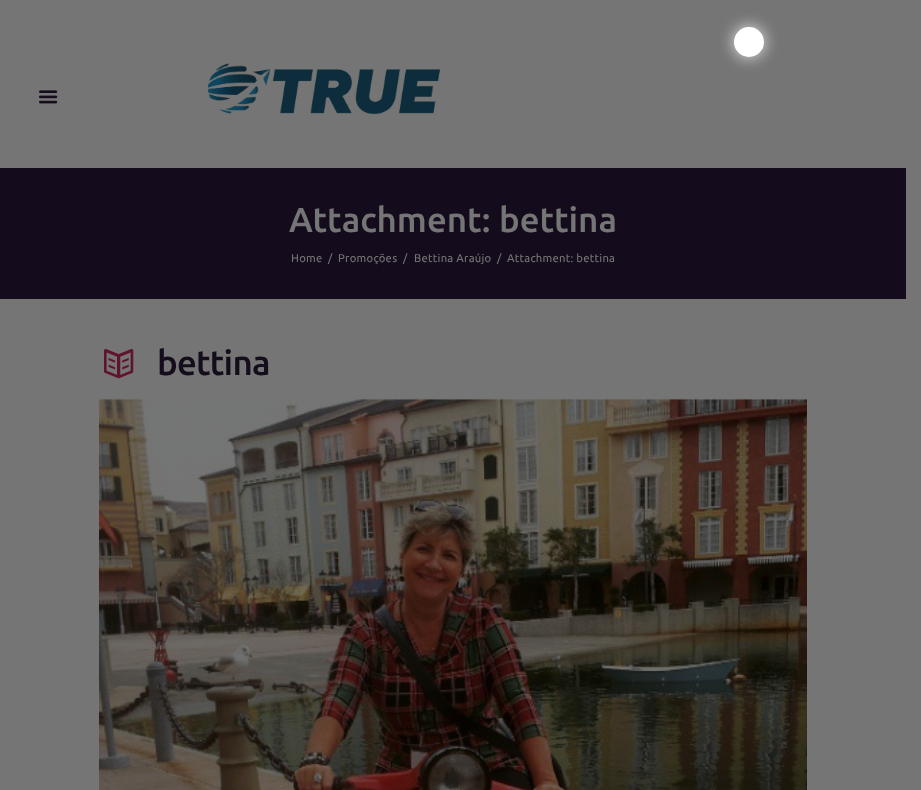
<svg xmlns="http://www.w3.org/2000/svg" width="921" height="790">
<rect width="100%" height="100%" fill="#757575"/>
<rect x="733" y="26" width="32" height="32" rx="16" fill="#ffffffbf" filter="blur(7.5px)"/>
<circle cx="749" cy="42" r="14" fill="#fff" stroke="#fff" stroke-width="2"/>
<image x="39" y="90" width="19" height="14" href="media/1.png"/>
<image x="207" y="63" width="234" height="52" href="media/2.png"/>
<rect y="168" width="906" height="131" fill="#140c1c"/>
<text x="289" y="232" style="font-family:Ubuntu;font-size:34.75px;font-weight:500;fill:#757575">Attachment: bettina</text>
<text x="291" y="262" style="font-family:Ubuntu;font-size:11.25px;letter-spacing:0.25px;fill:#757575">Home</text>
<text x="328" y="262" style="font-family:Ubuntu;font-size:11.25px;letter-spacing:0.25px;fill:#757575">/</text>
<text x="338" y="262" style="font-family:Ubuntu;font-size:11.25px;letter-spacing:0.25px;fill:#757575">Promoções</text>
<text x="403" y="262" style="font-family:Ubuntu;font-size:11.25px;letter-spacing:0.25px;fill:#757575">/</text>
<text x="414" y="262" style="font-family:Ubuntu;font-size:11.25px;letter-spacing:0.25px;fill:#757575">Bettina Araújo</text>
<text x="497" y="262" style="font-family:Ubuntu;font-size:11.25px;letter-spacing:0.25px;fill:#757575">/</text>
<text x="507" y="262" style="font-family:Ubuntu;font-size:11.25px;letter-spacing:0.25px;fill:#757575">Attachment: bettina</text>
<image x="104" y="349" width="30" height="30" href="media/3.png"/>
<text x="157" y="375" style="font-family:Ubuntu;font-size:34.75px;font-weight:500;letter-spacing:-0.75px;fill:#150d1b">bettina</text>
<image x="99" y="398" width="708" height="392" href="media/4.png"/>
</svg>
